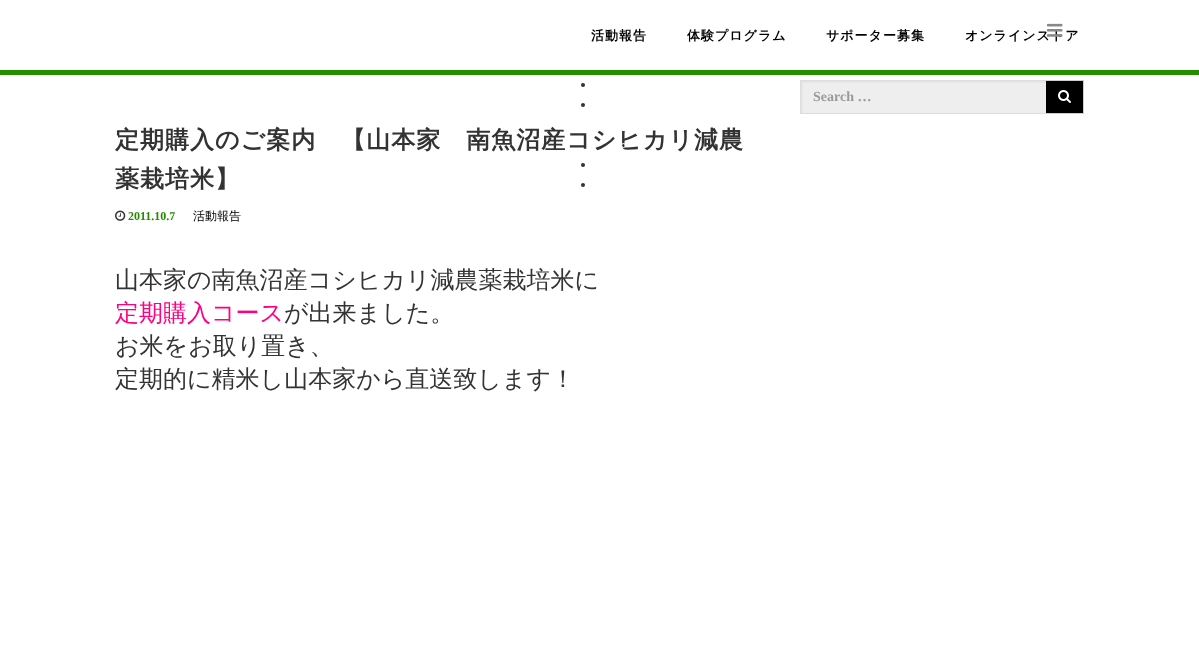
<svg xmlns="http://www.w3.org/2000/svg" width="1199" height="655">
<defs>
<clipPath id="clip1"><rect x="801" y="81" width="246" height="32"/></clipPath>
</defs>
<rect width="100%" height="100%" fill="#fff"/>
<rect y="70" width="1199" height="5" fill="#238c00"/>
<text x="965" y="40" style="font-family:WenQuanYi Zen Hei;font-size:13px;font-weight:bold;letter-spacing:1px;fill:#000">オンラインストア</text>
<image x="1047" y="23" width="16" height="14" href="media/1.png"/>
<text x="591" y="40" style="font-family:WenQuanYi Zen Hei;font-size:13px;font-weight:bold;letter-spacing:1px;fill:#000">活動報告</text>
<text x="687" y="40" style="font-family:WenQuanYi Zen Hei;font-size:13px;font-weight:bold;letter-spacing:1px;fill:#000">体験プログラム</text>
<text x="826" y="40" style="font-family:WenQuanYi Zen Hei;font-size:13px;font-weight:bold;letter-spacing:1px;fill:#000">サポーター募集</text>
<circle cx="583" cy="85" r="2" fill="#333"/>
<circle cx="583" cy="105" r="2" fill="#333"/>
<text x="115" y="148" style="font-family:WenQuanYi Zen Hei;font-size:24px;font-weight:bold;letter-spacing:1px;fill:#333">定期購入のご案内　【山本家　南魚沼産コシヒカリ減農</text>
<circle cx="623.5" cy="145.5" r="2" fill="none" stroke="#fff"/>
<circle cx="583" cy="165" r="2" fill="#333"/>
<circle cx="583" cy="185" r="2" fill="#333"/>
<rect x="803" y="83" width="243" height="30" fill="#eee"/>
<g clip-path="url(#clip1)">
<path d="M702-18h444v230h-444zm101 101h246v32h-246z" fill="#e5e5e5" fill-rule="evenodd"/>
</g>
<rect x="800" y="80" width="247" height="1" fill="#ddd"/>
<rect x="800" y="113" width="247" height="1" fill="#ddd"/>
<rect x="800" y="80" width="1" height="34" fill="#ddd"/>
<text x="813" y="101" style="font-family:Liberation Serif;font-size:14px;font-weight:bold;fill:#999">Search …</text>
<rect x="1046" y="81" width="37" height="32" fill="#000"/>
<rect x="1046" y="80" width="38" height="1" fill="#ccc"/>
<rect x="1083" y="80" width="1" height="34" fill="#ccc"/>
<rect x="1046" y="113" width="38" height="1" fill="#ccc"/>
<image x="1058" y="90" width="13" height="13" href="media/2.png"/>
<text x="115" y="187" style="font-family:WenQuanYi Zen Hei;font-size:24px;font-weight:bold;letter-spacing:1px;fill:#333">薬栽培米】</text>
<image x="115" y="210" width="11" height="11" href="media/3.png"/>
<text x="128" y="220" style="font-family:Liberation Serif;font-size:12px;font-weight:bold;fill:#238c00">2011.10.7</text>
<text x="193" y="220" style="font-family:WenQuanYi Zen Hei;font-size:12px;font-weight:500;fill:#000">活動報告</text>
<text x="115" y="288" style="font-family:WenQuanYi Zen Hei;font-size:24px;font-weight:500;fill:#333">山本家の南魚沼産コシヒカリ減農薬栽培米に</text>
<text x="115" y="321" style="font-family:WenQuanYi Zen Hei;font-size:24px;font-weight:500;fill:#ff0080">定期購入コース</text>
<text x="284" y="321" style="font-family:WenQuanYi Zen Hei;font-size:24px;font-weight:500;fill:#333">が出来ました。</text>
<text x="115" y="354" style="font-family:WenQuanYi Zen Hei;font-size:24px;font-weight:500;fill:#333">お米をお取り置き、</text>
<text x="115" y="387" style="font-family:WenQuanYi Zen Hei;font-size:24px;font-weight:500;fill:#333">定期的に精米し山本家から直送致します！</text>
</svg>
